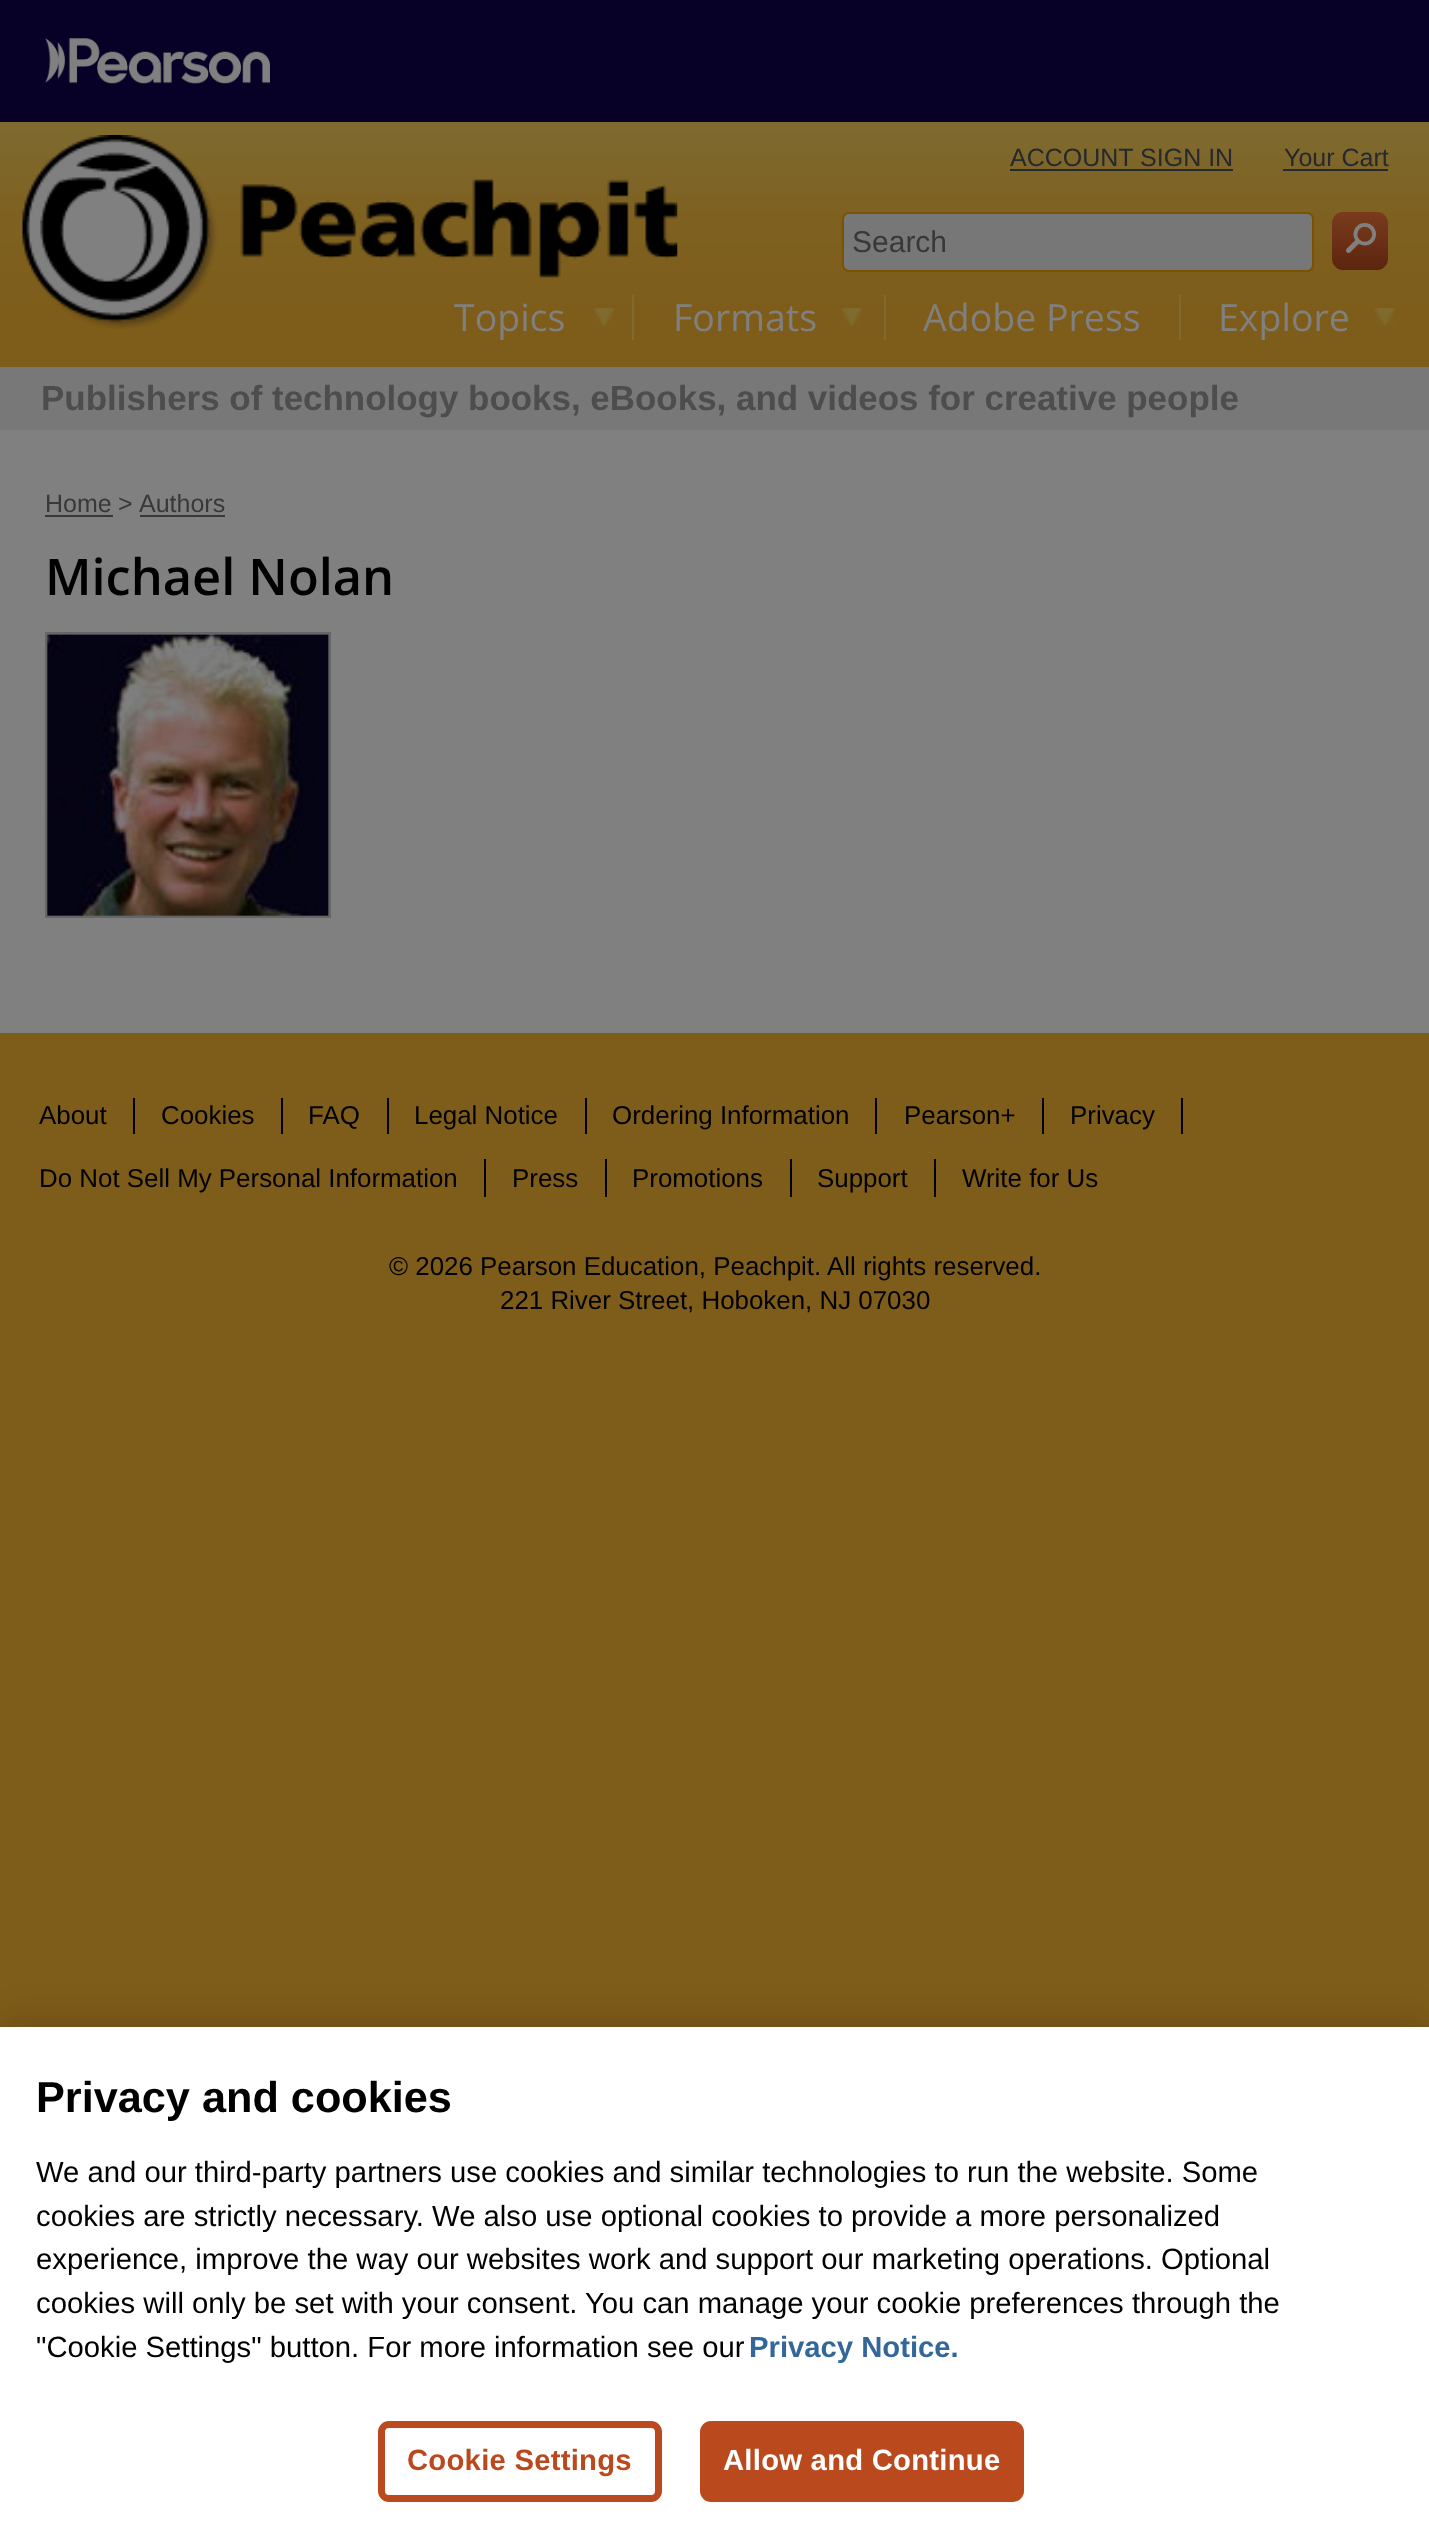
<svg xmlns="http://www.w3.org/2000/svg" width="1429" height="2530">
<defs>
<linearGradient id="g1" gradientUnits="userSpaceOnUse" x1="1360" y1="212" x2="1360" y2="270"><stop offset="0" stop-color="#7a3b1c"/><stop offset="1" stop-color="#5d250f"/></linearGradient>
</defs>
<rect width="100%" height="100%" fill="#7e5c19"/>
<image x="0" y="122" width="1429" height="182" href="media/1.png"/>
<rect width="1429" height="122" fill="#070027"/>
<image x="45" y="38" width="225" height="46" href="media/2.png"/>
<image x="22" y="135" width="656" height="194" href="media/3.png"/>
<text x="1010" y="166" style="font-family:Liberation Sans;font-size:25px;fill:#25292f">ACCOUNT SIGN IN</text>
<rect x="1010" y="169" width="223" height="2" fill="#25292f"/>
<text x="1284" y="166" style="font-family:Liberation Sans;font-size:25px;fill:#25292f">Your Cart</text>
<rect x="1283" y="169" width="105" height="2" fill="#25292f"/>
<rect x="843" y="213" width="470" height="58" rx="6" fill="#777" stroke="#795202" stroke-width="2"/>
<text x="852" y="252" style="font-family:Liberation Sans;font-size:30px;fill:#373839">Search</text>
<rect x="1332" y="212" width="56" height="58" rx="11" fill="url(#g1)"/>
<text x="1346" y="253" style="font-family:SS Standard;font-size:30px;fill:#808080">🔎</text>
<image x="594" y="308" width="21" height="19" href="media/4.png"/>
<text x="454" y="331" style="font-family:Open Sans;font-size:37.5px;fill:#808080">Topics</text>
<image x="841" y="308" width="21" height="19" href="media/5.png"/>
<rect x="632" y="295" width="2" height="45" fill="#7f6b2f"/>
<text x="673" y="331" style="font-family:Open Sans;font-size:37.5px;fill:#808080">Formats</text>
<rect x="884" y="295" width="2" height="45" fill="#7f6b2f"/>
<text x="923" y="331" style="font-family:Open Sans;font-size:37.5px;fill:#808080">Adobe Press</text>
<image x="1374" y="308" width="21" height="19" href="media/6.png"/>
<rect x="1179" y="295" width="2" height="45" fill="#7f6b2f"/>
<text x="1218" y="331" style="font-family:Open Sans;font-size:37.5px;fill:#808080">Explore</text>
<rect y="367" width="1429" height="63" fill="#787878"/>
<text x="41" y="410" style="font-family:Liberation Sans;font-size:34.95px;font-weight:bold;fill:#4d4d4d">Publishers of technology books, eBooks, and videos for creative people</text>
<rect y="430" width="1429" height="603" fill="#808080"/>
<text x="45" y="512" style="font-family:Liberation Sans;font-size:25px;fill:#373839">Home</text>
<rect x="45" y="515" width="68" height="2" fill="#373839"/>
<text x="118" y="512" style="font-family:Liberation Sans;font-size:25px;fill:#373839">&gt;</text>
<text x="139" y="512" style="font-family:Liberation Sans;font-size:25px;fill:#373839">Authors</text>
<rect x="140" y="515" width="85" height="2" fill="#373839"/>
<text x="45" y="595" style="font-family:Open Sans;font-size:50.5px;font-weight:600;fill:#000">Michael Nolan</text>
<rect x="46" y="633" width="284" height="284" fill="none" stroke="#666" stroke-width="2"/>
<image x="47" y="634" width="282" height="282" href="media/7.png"/>
<rect x="133" y="1098" width="2" height="36" fill="#000"/>
<text x="39" y="1124" style="font-family:Liberation Sans;font-size:25.9px;fill:#000">About</text>
<rect x="281" y="1098" width="2" height="36" fill="#000"/>
<text x="161" y="1124" style="font-family:Liberation Sans;font-size:25.9px;fill:#000">Cookies</text>
<rect x="387" y="1098" width="2" height="36" fill="#000"/>
<text x="308" y="1124" style="font-family:Liberation Sans;font-size:25.9px;fill:#000">FAQ</text>
<rect x="585" y="1098" width="2" height="36" fill="#000"/>
<text x="414" y="1124" style="font-family:Liberation Sans;font-size:25.9px;fill:#000">Legal Notice</text>
<rect x="875" y="1098" width="2" height="36" fill="#000"/>
<text x="612" y="1124" style="font-family:Liberation Sans;font-size:25.9px;fill:#000">Ordering Information</text>
<rect x="1042" y="1098" width="2" height="36" fill="#000"/>
<text x="904" y="1124" style="font-family:Liberation Sans;font-size:25.9px;fill:#000">Pearson+</text>
<rect x="1181" y="1098" width="2" height="36" fill="#000"/>
<text x="1070" y="1124" style="font-family:Liberation Sans;font-size:25.9px;fill:#000">Privacy</text>
<rect x="484" y="1159" width="2" height="38" fill="#000"/>
<text x="39" y="1187" style="font-family:Liberation Sans;font-size:25.9px;fill:#000">Do Not Sell My Personal Information</text>
<rect x="605" y="1159" width="2" height="38" fill="#000"/>
<text x="512" y="1187" style="font-family:Liberation Sans;font-size:25.9px;fill:#000">Press</text>
<rect x="790" y="1159" width="2" height="38" fill="#000"/>
<text x="632" y="1187" style="font-family:Liberation Sans;font-size:25.9px;fill:#000">Promotions</text>
<rect x="934" y="1159" width="2" height="38" fill="#000"/>
<text x="817" y="1187" style="font-family:Liberation Sans;font-size:25.9px;fill:#000">Support</text>
<text x="962" y="1187" style="font-family:Liberation Sans;font-size:25.9px;fill:#000">Write for Us</text>
<text x="389" y="1275" style="font-family:Liberation Sans;font-size:25.9px;fill:#000">© 2026 Pearson Education, Peachpit. All rights reserved.</text>
<text x="500" y="1309" style="font-family:Liberation Sans;font-size:25.9px;fill:#000">221 River Street, Hoboken, NJ 07030</text>
<rect y="2027" width="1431" height="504" fill="#00000033" filter="blur(20px)"/>
<rect y="2027" width="1429" height="503" fill="#fff"/>
<text x="36" y="2112" style="font-family:Liberation Sans;font-size:43.25px;font-weight:bold;fill:#000">Privacy and cookies</text>
<text x="36" y="2182" style="font-family:Liberation Sans;font-size:29.25px;fill:#000">We and our third-party partners use cookies and similar technologies to run the website. Some</text>
<text x="36" y="2226" style="font-family:Liberation Sans;font-size:29.25px;fill:#000">cookies are strictly necessary. We also use optional cookies to provide a more personalized</text>
<text x="36" y="2269" style="font-family:Liberation Sans;font-size:29.25px;fill:#000">experience, improve the way our websites work and support our marketing operations. Optional</text>
<text x="36" y="2313" style="font-family:Liberation Sans;font-size:29.25px;fill:#000">cookies will only be set with your consent. You can manage your cookie preferences through the</text>
<text x="36" y="2357" style="font-family:Liberation Sans;font-size:29.25px;fill:#000">"Cookie Settings" button. For more information see our</text>
<text x="749" y="2357" style="font-family:Liberation Sans;font-size:29.25px;font-weight:bold;fill:#33679a">Privacy Notice.</text>
<rect x="381.5" y="2424.5" width="277" height="74" rx="7.5" fill="none" stroke="#ba4a1e" stroke-width="7"/>
<text x="407" y="2470" style="font-family:Liberation Sans;font-size:29.25px;font-weight:bold;letter-spacing:0.25px;fill:#ba4a1e">Cookie Settings</text>
<rect x="700" y="2421" width="324" height="81" rx="11" fill="#ba4a1e"/>
<text x="723" y="2470" style="font-family:Liberation Sans;font-size:29.25px;font-weight:bold;letter-spacing:0.25px;fill:#fff">Allow and Continue</text>
</svg>
